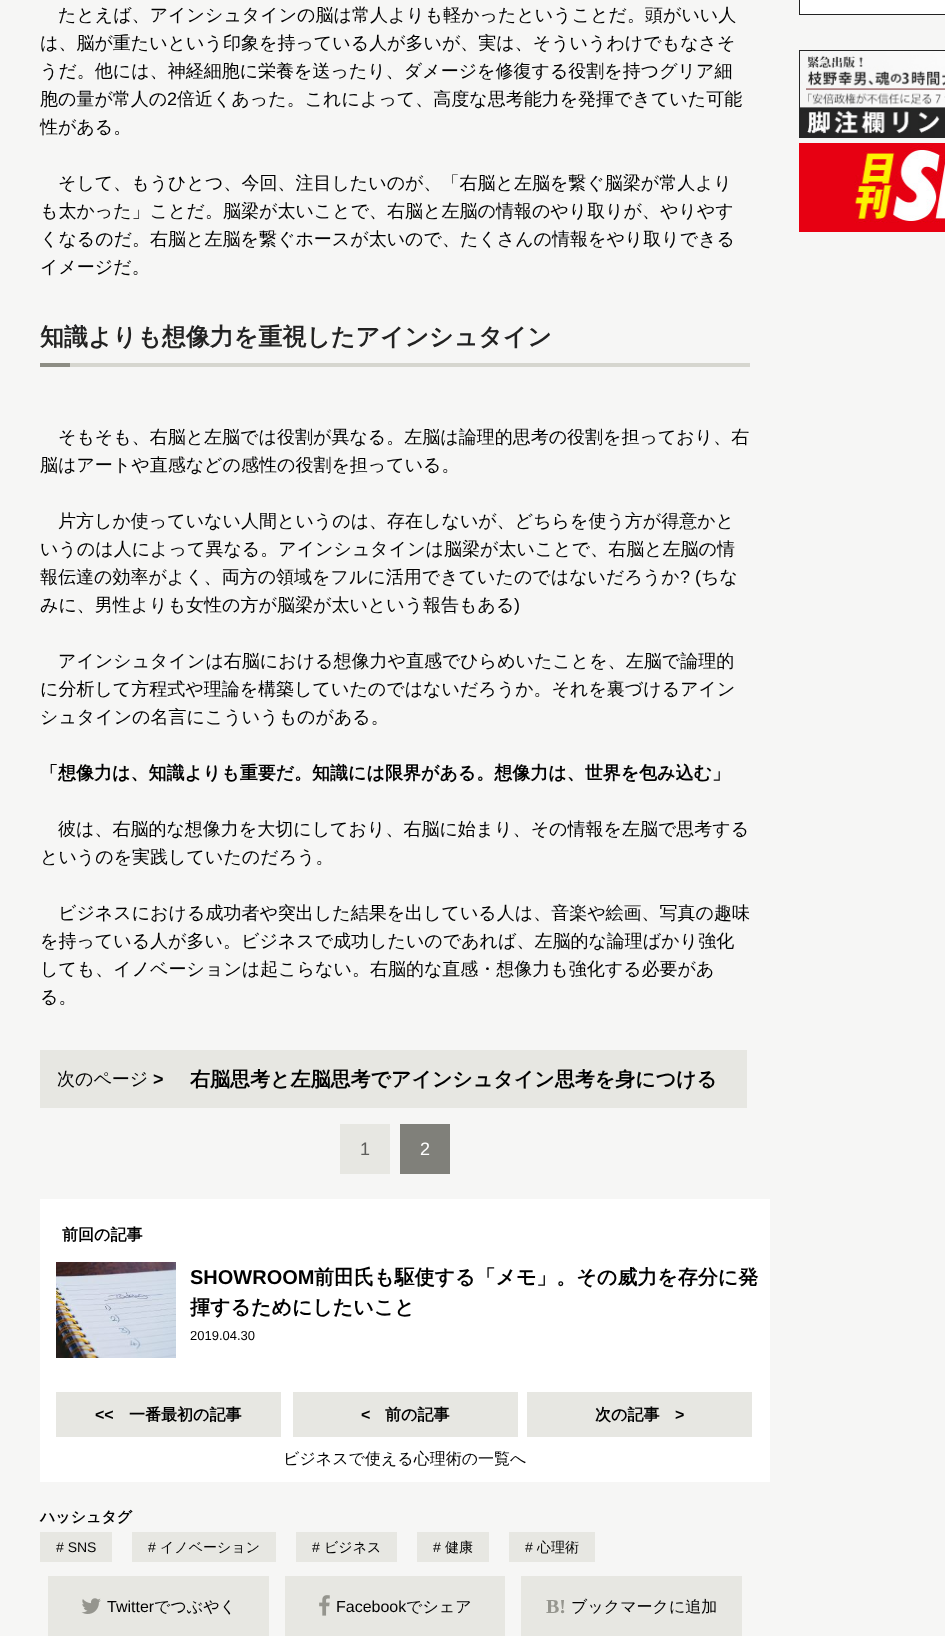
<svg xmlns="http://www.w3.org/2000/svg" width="945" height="1636">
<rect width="100%" height="100%" fill="#f6f6f5"/>
<text x="58" y="21" style="font-family:WenQuanYi Zen Hei;font-size:18px;font-weight:500;fill:#000">たとえば、アインシュタインの脳は常人よりも軽かったということだ。頭がいい人</text>
<text x="40" y="49" style="font-family:WenQuanYi Zen Hei;font-size:18px;font-weight:500;fill:#000">は、脳が重たいという印象を持っている人が多いが、実は、そういうわけでもなさそ</text>
<text x="40" y="77" style="font-family:WenQuanYi Zen Hei;font-size:18px;font-weight:500;fill:#000">うだ。他には、神経細胞に栄養を送ったり、ダメージを修復する役割を持つグリア細</text>
<text x="40" y="105" style="font-family:WenQuanYi Zen Hei;font-size:18px;font-weight:500;fill:#000">胞の量が常人の</text>
<text x="167" y="105" style="font-family:Liberation Sans;font-size:18px;fill:#000">2</text>
<text x="177" y="105" style="font-family:WenQuanYi Zen Hei;font-size:18px;font-weight:500;fill:#000">倍近くあった。これによって、高度な思考能力を発揮できていた可能</text>
<text x="40" y="133" style="font-family:WenQuanYi Zen Hei;font-size:18px;font-weight:500;fill:#000">性がある。</text>
<text x="58" y="189" style="font-family:WenQuanYi Zen Hei;font-size:18px;font-weight:500;fill:#000">そして、もうひとつ、今回、注目したいのが、「右脳と左脳を繋ぐ脳梁が常人より</text>
<text x="40" y="217" style="font-family:WenQuanYi Zen Hei;font-size:18px;font-weight:500;fill:#000">も太かった」ことだ。脳梁が太いことで、右脳と左脳の情報のやり取りが、やりやす</text>
<text x="40" y="245" style="font-family:WenQuanYi Zen Hei;font-size:18px;font-weight:500;fill:#000">くなるのだ。右脳と左脳を繋ぐホースが太いので、たくさんの情報をやり取りできる</text>
<text x="40" y="273" style="font-family:WenQuanYi Zen Hei;font-size:18px;font-weight:500;fill:#000">イメージだ。</text>
<text x="40" y="345" style="font-family:WenQuanYi Zen Hei;font-size:24px;font-weight:bold;fill:#222">知識よりも想像力を重視したアインシュタイン</text>
<rect x="40" y="363" width="30" height="4" fill="#8d8d84"/>
<rect x="70" y="363" width="680" height="4" fill="#d6d6cf"/>
<text x="58" y="443" style="font-family:WenQuanYi Zen Hei;font-size:18px;font-weight:500;fill:#000">そもそも、右脳と左脳では役割が異なる。左脳は論理的思考の役割を担っており、右</text>
<text x="40" y="471" style="font-family:WenQuanYi Zen Hei;font-size:18px;font-weight:500;fill:#000">脳はアートや直感などの感性の役割を担っている。</text>
<text x="58" y="527" style="font-family:WenQuanYi Zen Hei;font-size:18px;font-weight:500;fill:#000">片方しか使っていない人間というのは、存在しないが、どちらを使う方が得意かと</text>
<text x="40" y="555" style="font-family:WenQuanYi Zen Hei;font-size:18px;font-weight:500;fill:#000">いうのは人によって異なる。アインシュタインは脳梁が太いことで、右脳と左脳の情</text>
<text x="40" y="583" style="font-family:WenQuanYi Zen Hei;font-size:18px;font-weight:500;fill:#000">報伝達の効率がよく、両方の領域をフルに活用できていたのではないだろうか</text>
<text x="680" y="583" style="font-family:Liberation Sans;font-size:18px;fill:#000">? (</text>
<text x="701" y="583" style="font-family:WenQuanYi Zen Hei;font-size:18px;font-weight:500;fill:#000">ちな</text>
<text x="40" y="611" style="font-family:WenQuanYi Zen Hei;font-size:18px;font-weight:500;fill:#000">みに、男性よりも女性の方が脳梁が太いという報告もある</text>
<text x="514" y="611" style="font-family:Liberation Sans;font-size:18px;fill:#000">)</text>
<text x="58" y="667" style="font-family:WenQuanYi Zen Hei;font-size:18px;font-weight:500;fill:#000">アインシュタインは右脳における想像力や直感でひらめいたことを、左脳で論理的</text>
<text x="40" y="695" style="font-family:WenQuanYi Zen Hei;font-size:18px;font-weight:500;fill:#000">に分析して方程式や理論を構築していたのではないだろうか。それを裏づけるアイン</text>
<text x="40" y="723" style="font-family:WenQuanYi Zen Hei;font-size:18px;font-weight:500;fill:#000">シュタインの名言にこういうものがある。</text>
<text x="40" y="779" style="font-family:WenQuanYi Zen Hei;font-size:18px;font-weight:bold;fill:#000">「想像力は、知識よりも重要だ。知識には限界がある。想像力は、世界を包み込む」</text>
<text x="58" y="835" style="font-family:WenQuanYi Zen Hei;font-size:18px;font-weight:500;fill:#000">彼は、右脳的な想像力を大切にしており、右脳に始まり、その情報を左脳で思考する</text>
<text x="40" y="863" style="font-family:WenQuanYi Zen Hei;font-size:18px;font-weight:500;fill:#000">というのを実践していたのだろう。</text>
<text x="58" y="919" style="font-family:WenQuanYi Zen Hei;font-size:18px;font-weight:500;fill:#000">ビジネスにおける成功者や突出した結果を出している人は、音楽や絵画、写真の趣味</text>
<text x="40" y="947" style="font-family:WenQuanYi Zen Hei;font-size:18px;font-weight:500;fill:#000">を持っている人が多い。ビジネスで成功したいのであれば、左脳的な論理ばかり強化</text>
<text x="40" y="975" style="font-family:WenQuanYi Zen Hei;font-size:18px;font-weight:500;fill:#000">しても、イノベーションは起こらない。右脳的な直感・想像力も強化する必要があ</text>
<text x="40" y="1003" style="font-family:WenQuanYi Zen Hei;font-size:18px;font-weight:500;fill:#000">る。</text>
<rect x="40" y="1050" width="707" height="58" fill="#e7e7e2"/>
<text x="57" y="1085" style="font-family:WenQuanYi Zen Hei;font-size:18px;font-weight:500;fill:#000">次のページ</text>
<text x="153" y="1085" style="font-family:Liberation Sans;font-size:18px;font-weight:bold;fill:#000">&gt;</text>
<text x="190" y="1086" style="font-family:WenQuanYi Zen Hei;font-size:20px;font-weight:bold;fill:#000">右脳思考と左脳思考でアインシュタイン思考を身につける</text>
<rect x="340" y="1124" width="50" height="50" fill="#e7e7e2"/>
<text x="360" y="1155" style="font-family:Liberation Sans;font-size:18px;fill:#5d5d5b">1</text>
<rect x="400" y="1124" width="50" height="50" fill="#80807a"/>
<text x="420" y="1155" style="font-family:Liberation Sans;font-size:18px;fill:#fff">2</text>
<rect x="40" y="1199" width="730" height="283" fill="#fff"/>
<text x="62" y="1240" style="font-family:WenQuanYi Zen Hei;font-size:16px;font-weight:bold;fill:#000">前回の記事</text>
<image x="56" y="1262" width="120" height="96" href="media/1.png"/>
<text x="190" y="1284" style="font-family:Liberation Sans;font-size:20px;font-weight:bold;fill:#000">SHOWROOM</text>
<text x="314" y="1284" style="font-family:WenQuanYi Zen Hei;font-size:20px;font-weight:bold;fill:#000">前田氏も駆使する「メモ」。その威力を存分に発</text>
<text x="190" y="1314" style="font-family:WenQuanYi Zen Hei;font-size:20px;font-weight:bold;fill:#000">揮するためにしたいこと</text>
<text x="190" y="1340" style="font-family:Liberation Sans;font-size:13px;fill:#000">2019.04.30</text>
<rect x="56" y="1392" width="225" height="45" fill="#e7e7e2"/>
<text x="95" y="1420" style="font-family:Liberation Sans;font-size:16px;font-weight:bold;fill:#000">&lt;&lt;</text>
<text x="129" y="1420" style="font-family:WenQuanYi Zen Hei;font-size:16px;font-weight:bold;fill:#000">一番最初の記事</text>
<rect x="293" y="1392" width="225" height="45" fill="#e7e7e2"/>
<text x="361" y="1420" style="font-family:Liberation Sans;font-size:16px;font-weight:bold;fill:#000">&lt;</text>
<text x="385" y="1420" style="font-family:WenQuanYi Zen Hei;font-size:16px;font-weight:bold;fill:#000">前の記事</text>
<rect x="527" y="1392" width="225" height="45" fill="#e7e7e2"/>
<text x="595" y="1420" style="font-family:WenQuanYi Zen Hei;font-size:16px;font-weight:bold;fill:#000">次の記事</text>
<text x="675" y="1420" style="font-family:Liberation Sans;font-size:16px;font-weight:bold;fill:#000">&gt;</text>
<text x="283" y="1464" style="font-family:WenQuanYi Zen Hei;font-size:16px;font-weight:500;fill:#000">ビジネスで使える心理術の一覧へ</text>
<text x="40" y="1522" style="font-family:WenQuanYi Zen Hei;font-size:15px;font-weight:bold;fill:#000">ハッシュタグ</text>
<rect x="40" y="1532" width="72" height="30" fill="#e7e7e2"/>
<text x="56" y="1552" style="font-family:Liberation Sans;font-size:14px;fill:#000"># SNS</text>
<rect x="132" y="1532" width="144" height="30" fill="#e7e7e2"/>
<text x="148" y="1552" style="font-family:Liberation Sans;font-size:14px;fill:#000">#</text>
<text x="160" y="1552" style="font-family:WenQuanYi Zen Hei;font-size:14px;font-weight:500;fill:#000">イノベーション</text>
<rect x="296" y="1532" width="101" height="30" fill="#e7e7e2"/>
<text x="312" y="1552" style="font-family:Liberation Sans;font-size:14px;fill:#000">#</text>
<text x="324" y="1552" style="font-family:WenQuanYi Zen Hei;font-size:14px;font-weight:500;fill:#000">ビジネス</text>
<rect x="417" y="1532" width="72" height="30" fill="#e7e7e2"/>
<text x="433" y="1552" style="font-family:Liberation Sans;font-size:14px;fill:#000">#</text>
<text x="445" y="1552" style="font-family:WenQuanYi Zen Hei;font-size:14px;font-weight:500;fill:#000">健康</text>
<rect x="509" y="1532" width="86" height="30" fill="#e7e7e2"/>
<text x="525" y="1552" style="font-family:Liberation Sans;font-size:14px;fill:#000">#</text>
<text x="537" y="1552" style="font-family:WenQuanYi Zen Hei;font-size:14px;font-weight:500;fill:#000">心理術</text>
<rect x="48" y="1576" width="221" height="60" fill="#e7e7e2"/>
<image x="81" y="1598" width="20" height="16" href="media/2.png"/>
<text x="107" y="1612" style="font-family:Liberation Sans;font-size:16px;fill:#000">Twitter</text>
<text x="154" y="1612" style="font-family:WenQuanYi Zen Hei;font-size:16px;font-weight:500;fill:#000">でつぶやく</text>
<rect x="285" y="1576" width="220" height="60" fill="#e7e7e2"/>
<image x="319" y="1595" width="11" height="21" href="media/3.png"/>
<text x="336" y="1612" style="font-family:Liberation Sans;font-size:16px;fill:#000">Facebook</text>
<text x="406" y="1612" style="font-family:WenQuanYi Zen Hei;font-size:16px;font-weight:500;fill:#000">でシェア</text>
<rect x="521" y="1576" width="221" height="60" fill="#e7e7e2"/>
<text x="546" y="1613" style="font-family:Liberation Serif;font-size:20px;font-weight:bold;fill:#95958e">B!</text>
<text x="571" y="1612" style="font-family:WenQuanYi Zen Hei;font-size:16px;font-weight:500;fill:#000">ブックマークに追加</text>
<rect x="799.5" y="-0.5" width="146" height="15" fill="#fff" stroke="#222"/>
<image x="799" y="50" width="146" height="88" href="media/4.png"/>
<image x="799" y="143" width="146" height="89" href="media/5.png"/>
</svg>
